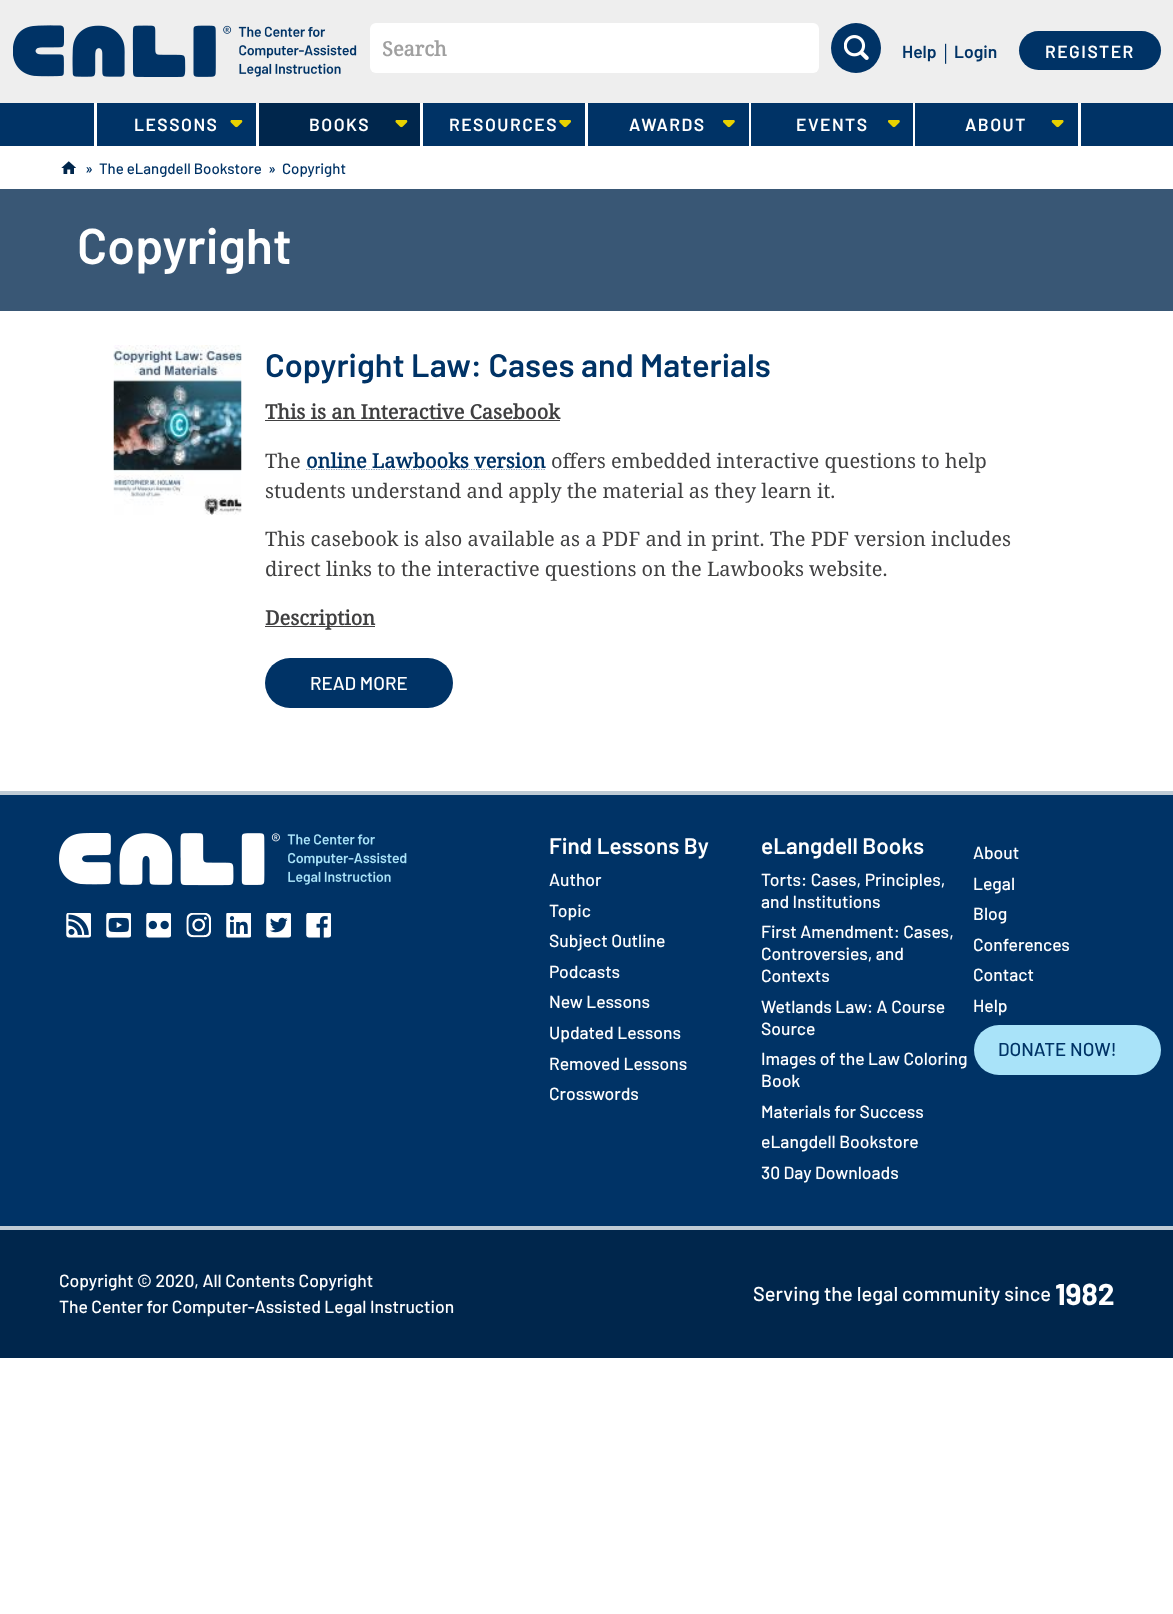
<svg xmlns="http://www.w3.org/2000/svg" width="1173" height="1614">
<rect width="100%" height="100%" fill="#fff"/>
<rect width="1173" height="103" fill="#eee"/>
<image x="13" y="25" width="344" height="52" href="media/1.png"/>
<rect x="370" y="23" width="449" height="50" rx="6" fill="#fff"/>
<text x="382" y="56" style="font-family:Noto Serif;font-size:20px;font-weight:bold;fill:#a0a0a0">Search</text>
<circle cx="856" cy="48" r="25" fill="#036"/>
<image x="844" y="35" width="25" height="25" href="media/2.png"/>
<text x="902" y="58" style="font-family:Barlow;font-size:17.5px;font-weight:600;fill:#036">Help</text>
<text x="940" y="59" style="font-family:Noto Serif;font-size:20px;fill:#036">|</text>
<text x="954" y="58" style="font-family:Barlow;font-size:17.5px;font-weight:600;fill:#036">Login</text>
<rect x="1019" y="31" width="142" height="39" rx="19.5" fill="#036"/>
<text x="1045" y="58" style="font-family:Barlow;font-size:17.5px;font-weight:600;letter-spacing:1.5px;fill:#fff">REGISTER</text>
<rect y="103" width="1173" height="43" fill="#036"/>
<rect x="256" y="103" width="3" height="43" fill="#fff"/>
<rect x="94" y="103" width="3" height="43" fill="#fff"/>
<text x="134" y="131" style="font-family:Barlow;font-size:17.5px;font-weight:600;letter-spacing:1.5px;fill:#fff">LESSONS</text>
<image x="230" y="120" width="13" height="8" href="media/3.png"/>
<rect x="420" y="103" width="3" height="43" fill="#fff"/>
<rect x="259" y="103" width="161" height="43" fill="#00264c"/>
<text x="309" y="131" style="font-family:Barlow;font-size:17.5px;font-weight:600;letter-spacing:1.5px;fill:#fff">BOOKS</text>
<image x="395" y="120" width="13" height="8" href="media/4.png"/>
<rect x="585" y="103" width="3" height="43" fill="#fff"/>
<text x="449" y="131" style="font-family:Barlow;font-size:17.5px;font-weight:600;letter-spacing:1.5px;fill:#fff">RESOURCES</text>
<image x="559" y="120" width="12" height="8" href="media/5.png"/>
<rect x="749" y="103" width="2" height="43" fill="#fff"/>
<text x="629" y="131" style="font-family:Barlow;font-size:17.5px;font-weight:600;letter-spacing:1.5px;fill:#fff">AWARDS</text>
<image x="723" y="120" width="12" height="8" href="media/6.png"/>
<rect x="913" y="103" width="2" height="43" fill="#fff"/>
<text x="796" y="131" style="font-family:Barlow;font-size:17.5px;font-weight:600;letter-spacing:1.5px;fill:#fff">EVENTS</text>
<image x="888" y="120" width="12" height="8" href="media/6.png"/>
<rect x="1078" y="103" width="3" height="43" fill="#fff"/>
<text x="965" y="131" style="font-family:Barlow;font-size:17.5px;font-weight:600;letter-spacing:1.5px;fill:#fff">ABOUT</text>
<image x="1051" y="120" width="13" height="8" href="media/7.png"/>
<image x="61" y="161" width="15" height="13" href="media/8.png"/>
<text x="85" y="174" style="font-family:Barlow;font-size:15px;font-weight:500;fill:#036">»</text>
<text x="99" y="174" style="font-family:Barlow;font-size:15px;font-weight:500;fill:#036">The eLangdell Bookstore</text>
<text x="268" y="174" style="font-family:Barlow;font-size:15px;font-weight:500;fill:#036">»</text>
<text x="282" y="174" style="font-family:Barlow;font-size:15px;font-weight:500;fill:#036">Copyright</text>
<rect y="189" width="1173" height="122" fill="#395775"/>
<text x="77" y="264" style="font-family:Barlow;font-size:50px;font-weight:600;fill:#fff">Copyright</text>
<image x="113" y="345" width="129" height="170" href="media/9.png"/>
<text x="265" y="377" style="font-family:Barlow;font-size:32.5px;font-weight:600;fill:#036">Copyright Law: Cases and Materials</text>
<text x="265" y="419" style="font-family:Noto Serif;font-size:20px;font-weight:bold;fill:#404041">This is an Interactive Casebook</text>
<rect x="265" y="420" width="295" height="1" fill="#404041"/>
<text x="265" y="468" style="font-family:Noto Serif;font-size:20px;fill:#404041">The</text>
<path d="M306 469.5h240" fill="none" stroke="#8099b3" stroke-width="1.2" stroke-dasharray="1.25 1.25"/>
<text x="306" y="468" style="font-family:Noto Serif;font-size:20px;font-weight:bold;fill:#036">online Lawbooks version</text>
<text x="551" y="468" style="font-family:Noto Serif;font-size:20px;fill:#404041">offers embedded interactive questions to help</text>
<text x="265" y="498" style="font-family:Noto Serif;font-size:20px;fill:#404041">students understand and apply the material as they learn it.</text>
<text x="265" y="546" style="font-family:Noto Serif;font-size:20px;fill:#404041">This casebook is also available as a PDF and in print. The PDF version includes</text>
<text x="265" y="576" style="font-family:Noto Serif;font-size:20px;fill:#404041">direct links to the interactive questions on the Lawbooks website.</text>
<rect x="265" y="626" width="110" height="1" fill="#404041"/>
<text x="265" y="625" style="font-family:Noto Serif;font-size:20px;font-weight:bold;fill:#404041">Description</text>
<rect x="265" y="658" width="188" height="50" rx="25" fill="#036"/>
<text x="310" y="690" style="font-family:Barlow;font-size:18.75px;font-weight:500;fill:#fff">READ MORE</text>
<rect y="795" width="1173" height="431" fill="#036"/>
<rect y="791" width="1173" height="4" fill="#bfcbd5"/>
<image x="59" y="833" width="348" height="53" href="media/10.png"/>
<image x="66" y="913" width="25" height="25" href="media/11.png"/>
<image x="106" y="913" width="25" height="25" href="media/12.png"/>
<image x="146" y="913" width="25" height="25" href="media/13.png"/>
<image x="186" y="913" width="25" height="25" href="media/14.png"/>
<image x="226" y="913" width="25" height="25" href="media/15.png"/>
<image x="266" y="913" width="25" height="25" href="media/16.png"/>
<image x="306" y="913" width="25" height="25" href="media/17.png"/>
<text x="549" y="854" style="font-family:Barlow;font-size:22.5px;font-weight:600;fill:#fff">Find Lessons By</text>
<text x="549" y="886" style="font-family:Barlow;font-size:17.5px;font-weight:500;fill:#fff">Author</text>
<text x="549" y="917" style="font-family:Barlow;font-size:17.5px;font-weight:500;fill:#fff">Topic</text>
<text x="549" y="947" style="font-family:Barlow;font-size:17.5px;font-weight:500;fill:#fff">Subject Outline</text>
<text x="549" y="978" style="font-family:Barlow;font-size:17.5px;font-weight:500;fill:#fff">Podcasts</text>
<text x="549" y="1008" style="font-family:Barlow;font-size:17.5px;font-weight:500;fill:#fff">New Lessons</text>
<text x="549" y="1039" style="font-family:Barlow;font-size:17.5px;font-weight:500;fill:#fff">Updated Lessons</text>
<text x="549" y="1070" style="font-family:Barlow;font-size:17.5px;font-weight:500;fill:#fff">Removed Lessons</text>
<text x="549" y="1100" style="font-family:Barlow;font-size:17.5px;font-weight:500;fill:#fff">Crosswords</text>
<text x="761" y="854" style="font-family:Barlow;font-size:22.5px;font-weight:600;fill:#fff">eLangdell Books</text>
<text x="761" y="886" style="font-family:Barlow;font-size:17.5px;font-weight:500;fill:#fff">Torts: Cases, Principles,</text>
<text x="761" y="908" style="font-family:Barlow;font-size:17.5px;font-weight:500;fill:#fff">and Institutions</text>
<text x="761" y="938" style="font-family:Barlow;font-size:17.5px;font-weight:500;fill:#fff">First Amendment: Cases,</text>
<text x="761" y="960" style="font-family:Barlow;font-size:17.5px;font-weight:500;fill:#fff">Controversies, and</text>
<text x="761" y="982" style="font-family:Barlow;font-size:17.5px;font-weight:500;fill:#fff">Contexts</text>
<text x="761" y="1013" style="font-family:Barlow;font-size:17.5px;font-weight:500;fill:#fff">Wetlands Law: A Course</text>
<text x="761" y="1035" style="font-family:Barlow;font-size:17.5px;font-weight:500;fill:#fff">Source</text>
<text x="761" y="1065" style="font-family:Barlow;font-size:17.5px;font-weight:500;fill:#fff">Images of the Law Coloring</text>
<text x="761" y="1087" style="font-family:Barlow;font-size:17.5px;font-weight:500;fill:#fff">Book</text>
<text x="761" y="1118" style="font-family:Barlow;font-size:17.5px;font-weight:500;fill:#fff">Materials for Success</text>
<text x="761" y="1148" style="font-family:Barlow;font-size:17.5px;font-weight:500;fill:#fff">eLangdell Bookstore</text>
<text x="761" y="1179" style="font-family:Barlow;font-size:17.5px;font-weight:500;fill:#fff">30 Day Downloads</text>
<text x="973" y="859" style="font-family:Barlow;font-size:17.5px;font-weight:500;fill:#fff">About</text>
<text x="973" y="890" style="font-family:Barlow;font-size:17.5px;font-weight:500;fill:#fff">Legal</text>
<text x="973" y="920" style="font-family:Barlow;font-size:17.5px;font-weight:500;fill:#fff">Blog</text>
<text x="973" y="951" style="font-family:Barlow;font-size:17.5px;font-weight:500;fill:#fff">Conferences</text>
<text x="973" y="981" style="font-family:Barlow;font-size:17.5px;font-weight:500;fill:#fff">Contact</text>
<text x="973" y="1012" style="font-family:Barlow;font-size:17.5px;font-weight:500;fill:#fff">Help</text>
<rect x="974" y="1025" width="187" height="50" rx="25" fill="#a9e3f9"/>
<text x="998" y="1056" style="font-family:Barlow;font-size:18.75px;font-weight:500;fill:#036">DONATE NOW!</text>
<rect y="1230" width="1173" height="128" fill="#00264c"/>
<rect y="1226" width="1173" height="4" fill="#bfcbd5"/>
<text x="59" y="1287" style="font-family:Barlow;font-size:17.5px;font-weight:500;fill:#fff">Copyright © 2020, All Contents Copyright</text>
<text x="59" y="1313" style="font-family:Barlow;font-size:17.5px;font-weight:500;fill:#fff">The Center for Computer-Assisted Legal Instruction</text>
<text x="753" y="1301" style="font-family:Barlow;font-size:20px;font-weight:500;fill:#fff">Serving the legal community since</text>
<text x="1055" y="1305" style="font-family:Barlow;font-size:30px;font-weight:bold;fill:#fff">1982</text>
</svg>
